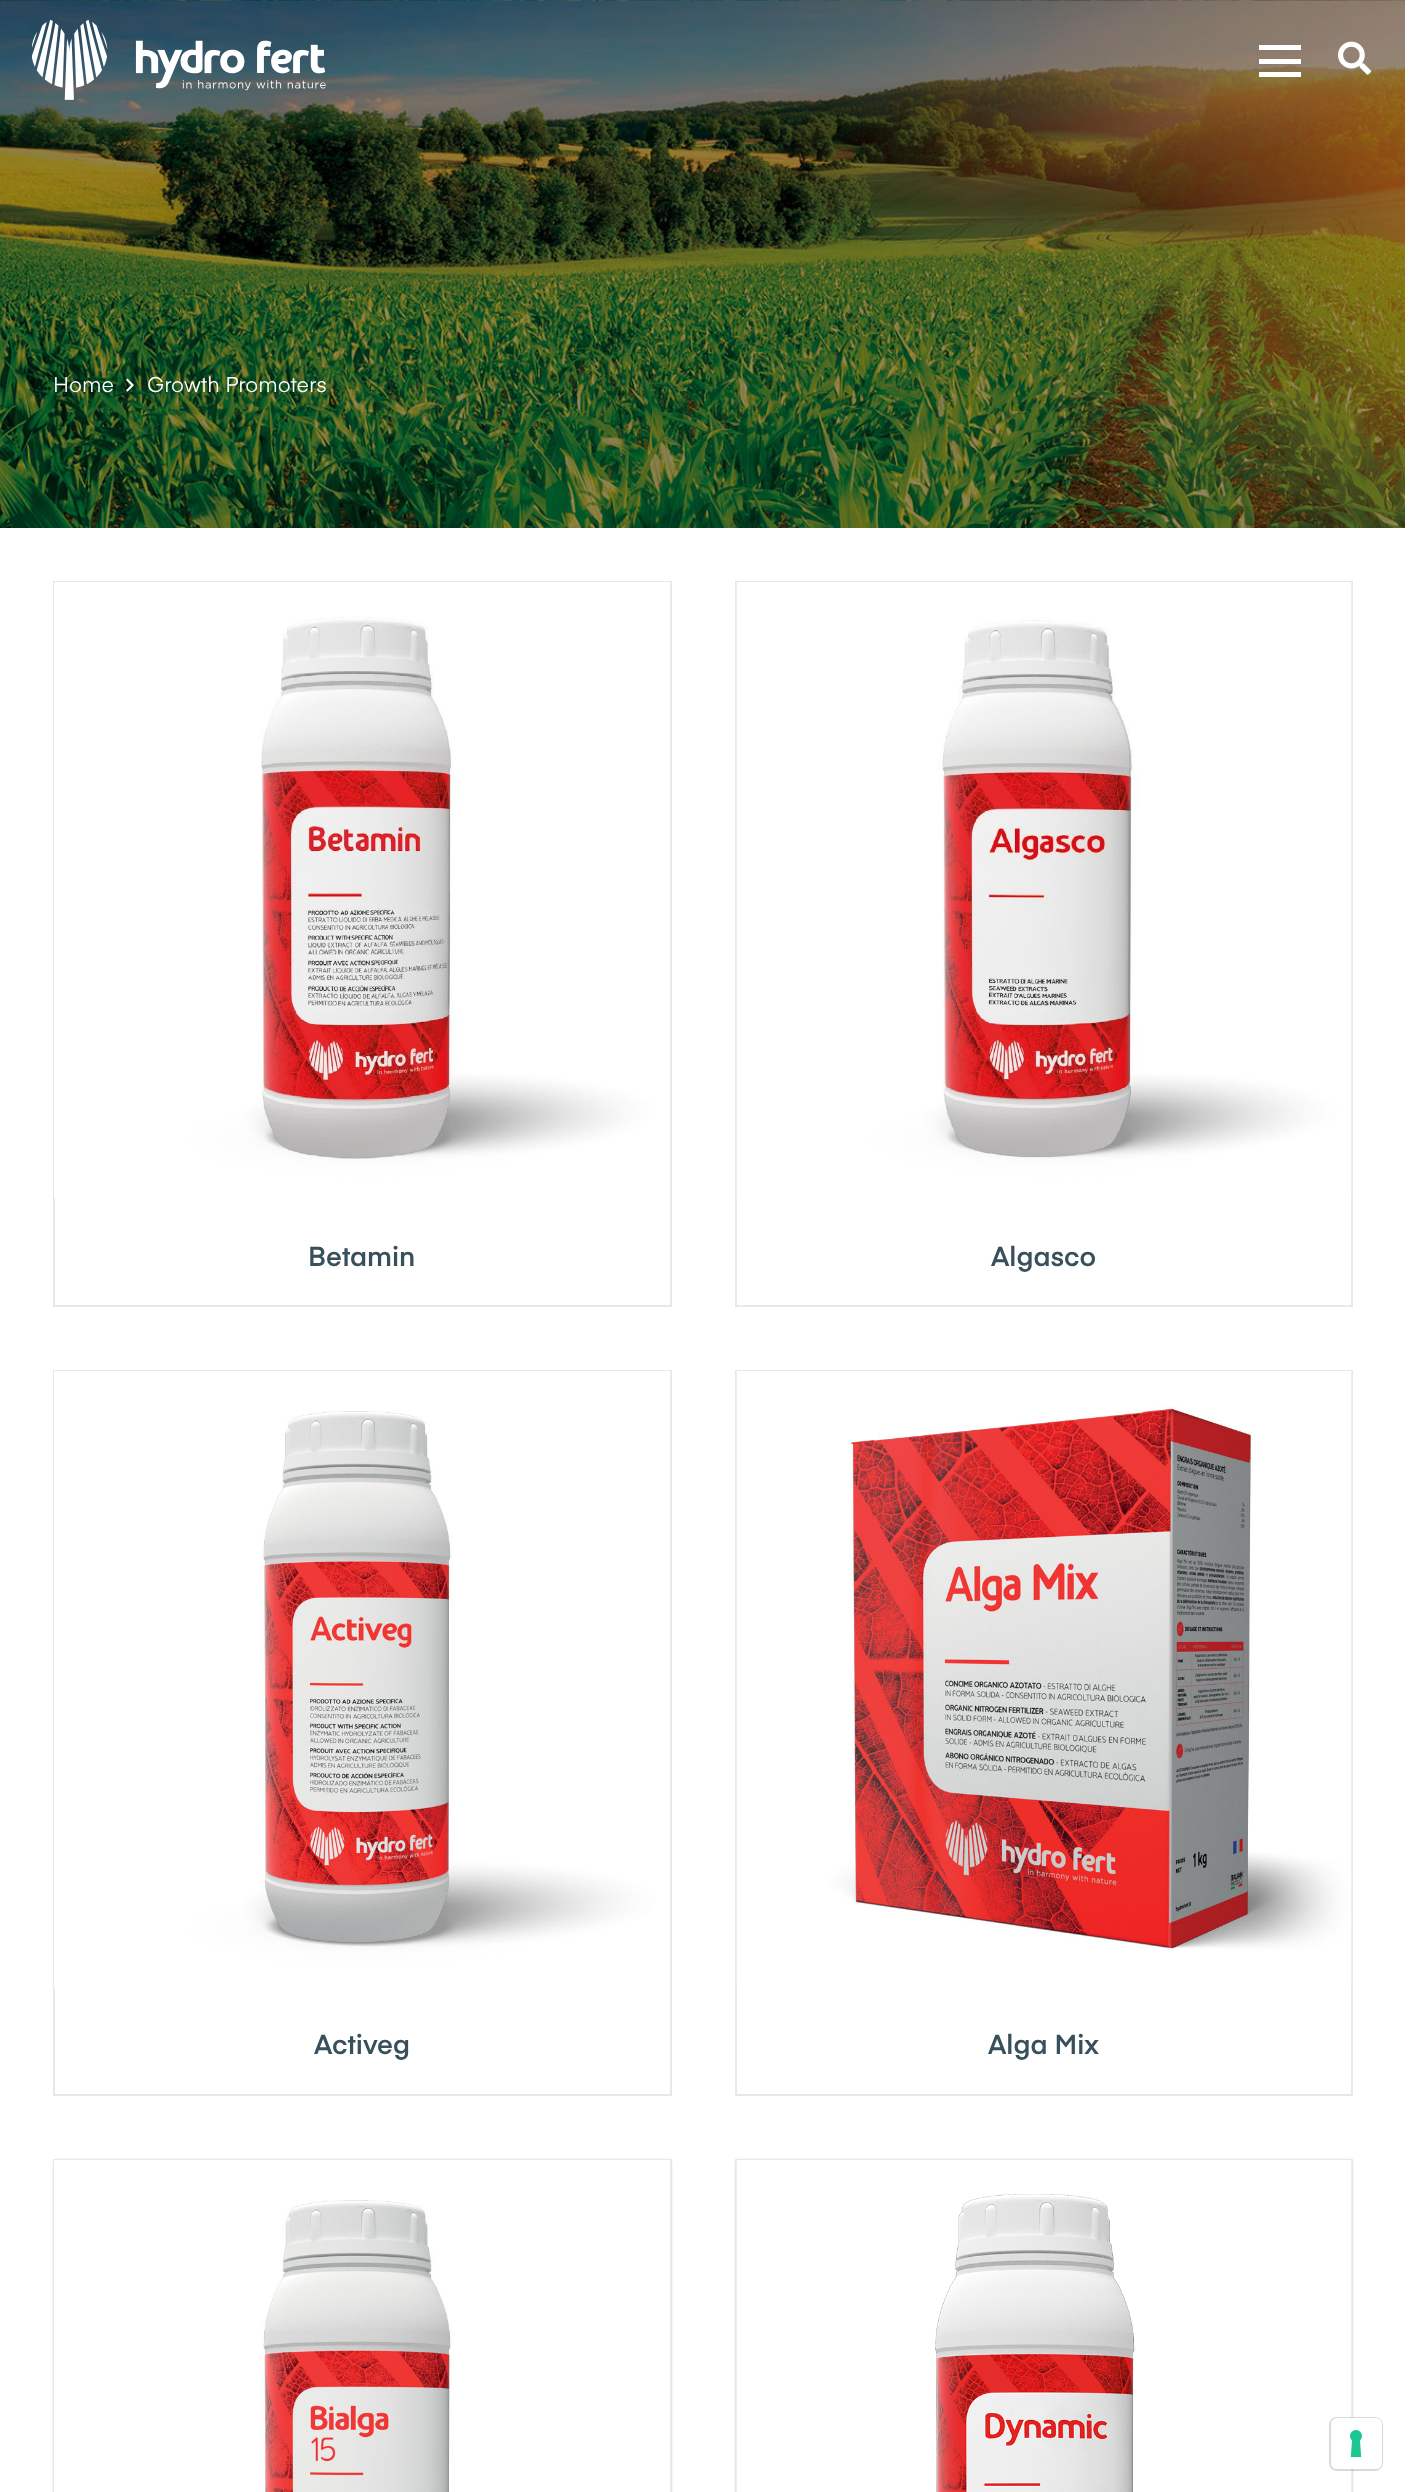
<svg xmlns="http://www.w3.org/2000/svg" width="1405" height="2492">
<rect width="100%" height="100%" fill="#fff"/>
<image x="0" y="0" width="1405" height="528" href="media/3.png"/>
<image x="32" y="20" width="294" height="80" href="media/1.png"/>
<rect x="1259" y="59" width="42" height="5" fill="#fff"/>
<rect x="1259" y="45" width="42" height="5" fill="#fff"/>
<rect x="1259" y="72" width="42" height="5" fill="#fff"/>
<image x="1338" y="41" width="33" height="34" href="media/2.png"/>
<text x="53" y="392" style="font-family:'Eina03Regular';font-size:21px;fill:#fff">Home</text>
<image x="126" y="378" width="8" height="14" href="media/4.png"/>
<text x="147" y="392" style="font-family:'Eina03Regular';font-size:21px;fill:#fff">Growth Promoters</text>
<rect x="54" y="582" width="617" height="724" fill="none" stroke="#e8e8e8" stroke-width="2"/>
<image x="54" y="582" width="617" height="617" href="media/5.png"/>
<text x="308" y="1266" style="font-family:'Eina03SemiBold';font-size:27px;font-weight:600;fill:#38505c">Betamin</text>
<rect x="736" y="582" width="616" height="724" fill="none" stroke="#e8e8e8" stroke-width="2"/>
<image x="736" y="582" width="616" height="616" href="media/6.png"/>
<text x="991" y="1266" style="font-family:'Eina03SemiBold';font-size:27px;font-weight:600;fill:#38505c">Algasco</text>
<rect x="54" y="1371" width="617" height="724" fill="none" stroke="#e8e8e8" stroke-width="2"/>
<image x="54" y="1371" width="617" height="617" href="media/7.png"/>
<text x="314" y="2054" style="font-family:'Eina03SemiBold';font-size:27px;font-weight:600;fill:#38505c">Activeg</text>
<rect x="736" y="1371" width="616" height="724" fill="none" stroke="#e8e8e8" stroke-width="2"/>
<image x="736" y="1371" width="616" height="616" href="media/8.png"/>
<text x="988" y="2054" style="font-family:'Eina03SemiBold';font-size:27px;font-weight:600;fill:#38505c">Alga Mix</text>
<rect x="53" y="2159" width="619" height="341" rx="5" fill="#0000001a" filter="blur(1px)"/>
<rect x="54" y="2160" width="617" height="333" fill="none" stroke="#e8e8e8" stroke-width="2"/>
<image x="54" y="2160" width="617" height="332" href="media/9.png"/>
<rect x="735" y="2159" width="618" height="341" rx="5" fill="#0000001a" filter="blur(1px)"/>
<rect x="736" y="2160" width="616" height="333" fill="none" stroke="#e8e8e8" stroke-width="2"/>
<image x="736" y="2160" width="616" height="332" href="media/10.png"/>
<rect x="1330" y="2418" width="52" height="52" rx="7" fill="none" stroke="#00000026" stroke-width="2"/>
<rect x="1331" y="2418" width="51" height="51" rx="6" fill="#fff"/>
<image x="1350" y="2430" width="12" height="27" href="media/11.png"/>
</svg>
